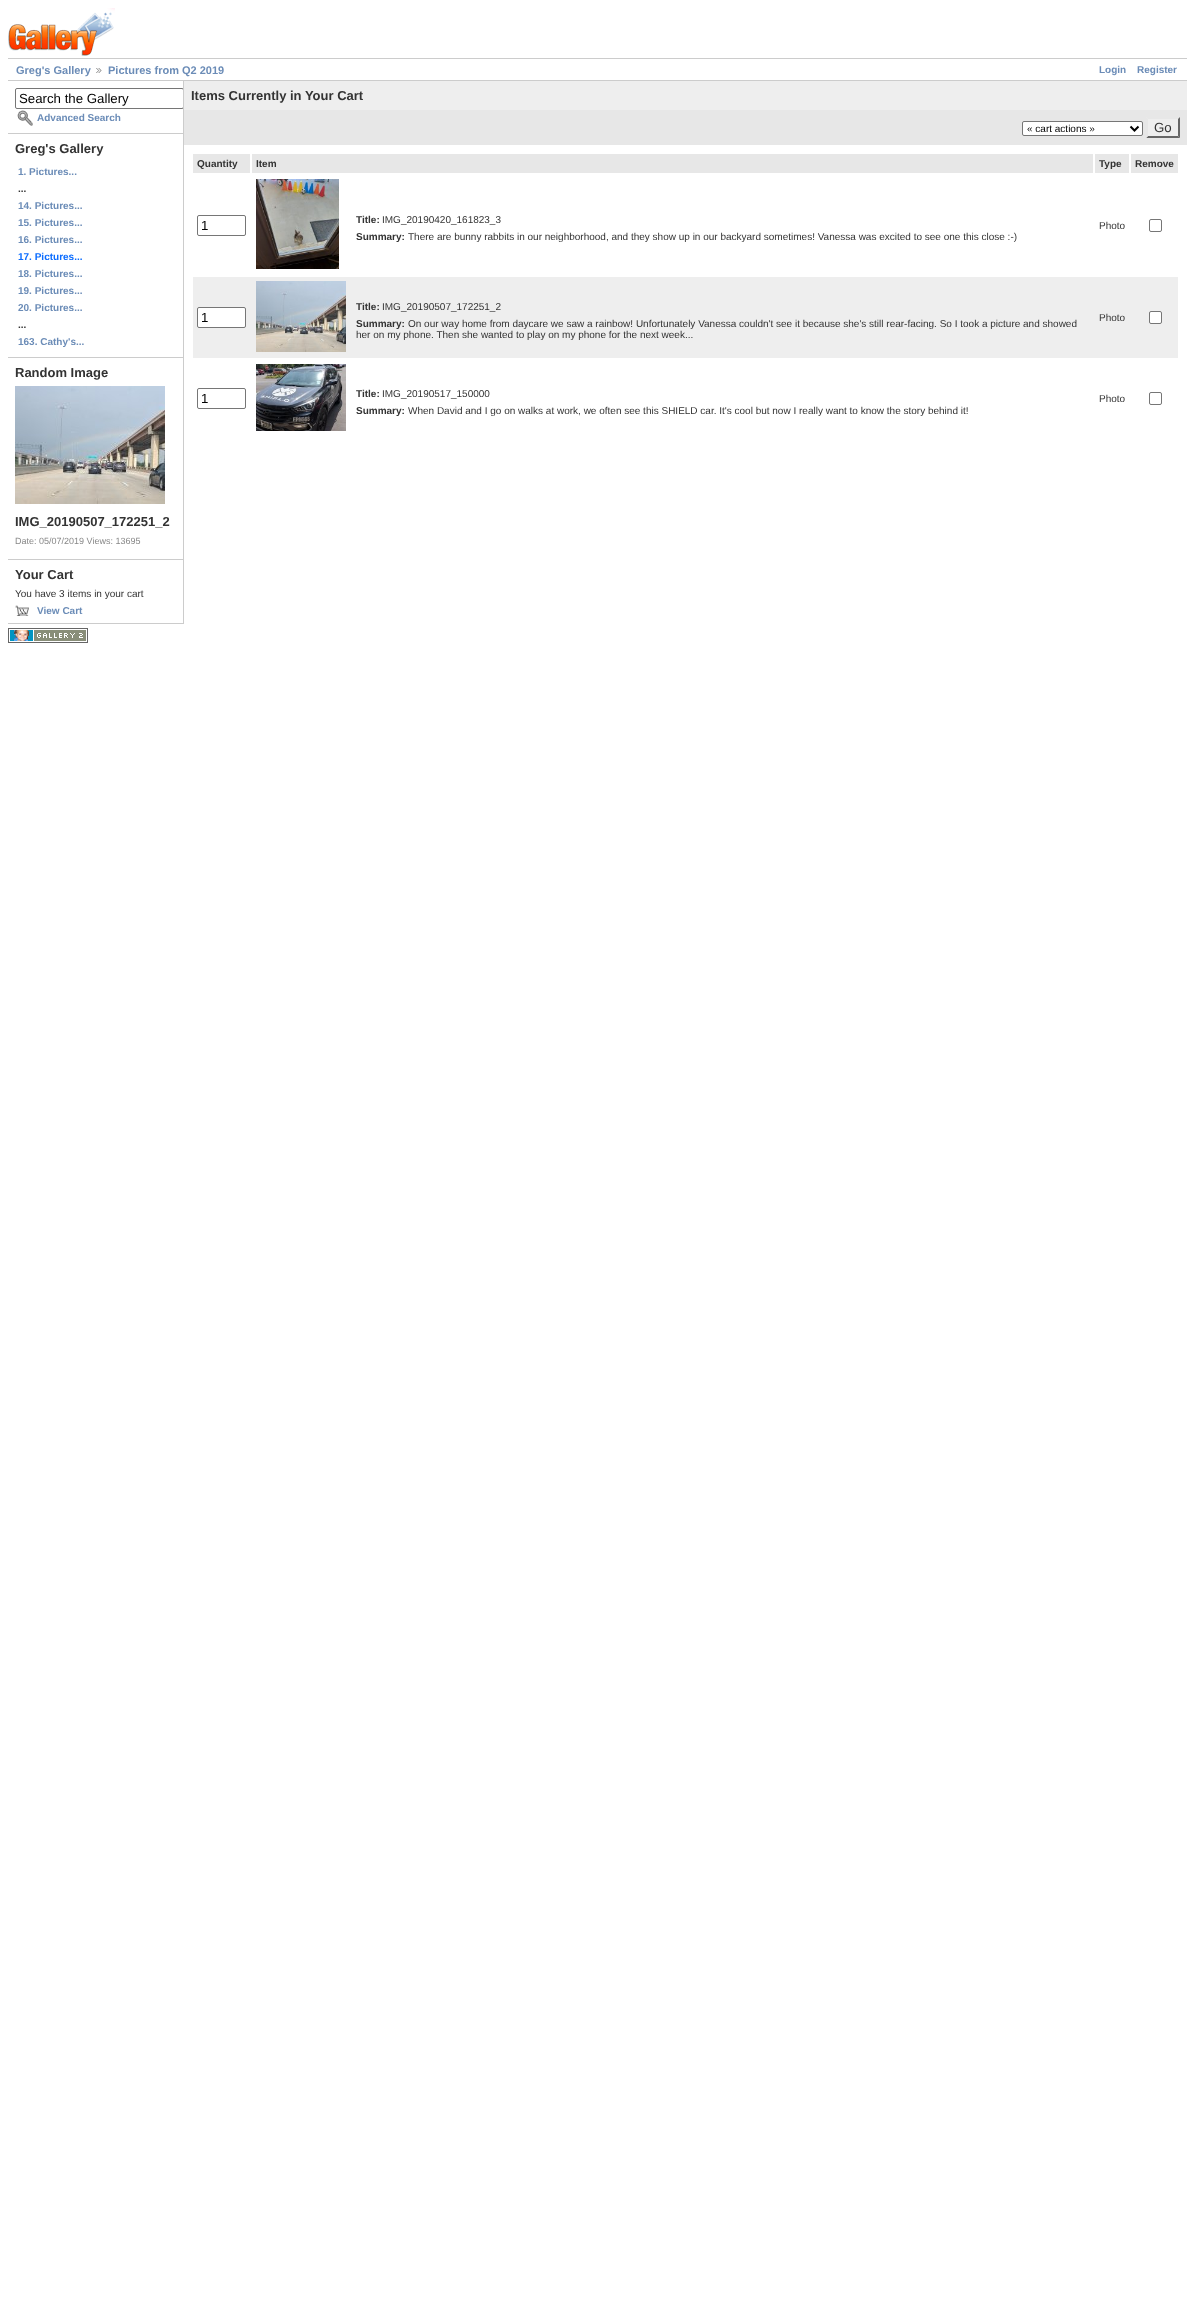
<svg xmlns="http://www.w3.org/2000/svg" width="1195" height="2321">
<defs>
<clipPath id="clip1"><rect x="8" y="81" width="175" height="543"/></clipPath>
</defs>
<rect width="100%" height="100%" fill="#fff"/>
<image x="8" y="8" width="107" height="48" href="media/1.png"/>
<rect x="8" y="58" width="1179" height="1" fill="#ccc"/>
<rect x="8" y="80" width="1179" height="1" fill="#ccc"/>
<text x="16" y="74" style="font-family:Liberation Sans;font-size:11px;font-weight:bold;fill:#6b8cb7">Greg's Gallery</text>
<image x="96" y="68" width="6" height="5" href="media/2.png"/>
<text x="108" y="74" style="font-family:Liberation Sans;font-size:11px;font-weight:bold;fill:#6b8cb7">Pictures from Q2 2019</text>
<text x="1099" y="73" style="font-family:Liberation Sans;font-size:10px;font-weight:bold;fill:#6b8cb7">Login</text>
<text x="1137" y="73" style="font-family:Liberation Sans;font-size:10px;font-weight:bold;fill:#6b8cb7">Register</text>
<rect x="183" y="81" width="1" height="543" fill="#ccc"/>
<rect x="8" y="133" width="175" height="1" fill="#ccc"/>
<g clip-path="url(#clip1)">
<rect x="15.5" y="88.5" width="168" height="20" rx="1.5" fill="none" stroke="#767676"/>
</g>
<text x="19" y="103" style="font-family:Liberation Sans;font-size:13.25px;fill:#000">Search the Gallery</text>
<image x="17" y="110" width="16" height="16" href="media/3.png"/>
<text x="37" y="121" style="font-family:Liberation Sans;font-size:10px;font-weight:bold;fill:#6b8cb7">Advanced Search</text>
<rect x="8" y="357" width="175" height="1" fill="#ccc"/>
<text x="15" y="153" style="font-family:Liberation Sans;font-size:13px;font-weight:bold;fill:#333">Greg's Gallery</text>
<text x="18" y="175" style="font-family:Liberation Sans;font-size:10px;font-weight:bold;fill:#6b8cb7">1. Pictures...</text>
<text x="18" y="192" style="font-family:Liberation Sans;font-size:10px;font-weight:bold;fill:#333">...</text>
<text x="18" y="209" style="font-family:Liberation Sans;font-size:10px;font-weight:bold;fill:#6b8cb7">14. Pictures...</text>
<text x="18" y="226" style="font-family:Liberation Sans;font-size:10px;font-weight:bold;fill:#6b8cb7">15. Pictures...</text>
<text x="18" y="243" style="font-family:Liberation Sans;font-size:10px;font-weight:bold;fill:#6b8cb7">16. Pictures...</text>
<text x="18" y="260" style="font-family:Liberation Sans;font-size:10px;font-weight:bold;fill:#0b6cff">17. Pictures...</text>
<text x="18" y="277" style="font-family:Liberation Sans;font-size:10px;font-weight:bold;fill:#6b8cb7">18. Pictures...</text>
<text x="18" y="294" style="font-family:Liberation Sans;font-size:10px;font-weight:bold;fill:#6b8cb7">19. Pictures...</text>
<text x="18" y="311" style="font-family:Liberation Sans;font-size:10px;font-weight:bold;fill:#6b8cb7">20. Pictures...</text>
<text x="18" y="328" style="font-family:Liberation Sans;font-size:10px;font-weight:bold;fill:#333">...</text>
<text x="18" y="345" style="font-family:Liberation Sans;font-size:10px;font-weight:bold;fill:#6b8cb7">163. Cathy's...</text>
<rect x="8" y="559" width="175" height="1" fill="#ccc"/>
<text x="15" y="377" style="font-family:Liberation Sans;font-size:13px;font-weight:bold;fill:#333">Random Image</text>
<image x="15" y="386" width="150" height="118" href="media/4.png"/>
<text x="15" y="526" style="font-family:Liberation Sans;font-size:13px;font-weight:bold;fill:#333">IMG_20190507_172251_2</text>
<text x="15" y="544" style="font-family:Liberation Sans;font-size:9px;fill:#888">Date: 05/07/2019 Views: 13695</text>
<rect x="8" y="623" width="175" height="1" fill="#ccc"/>
<text x="15" y="579" style="font-family:Liberation Sans;font-size:13px;font-weight:bold;fill:#333">Your Cart</text>
<text x="15" y="597" style="font-family:Liberation Sans;font-size:10px;fill:#333">You have 3 items in your cart</text>
<image x="15" y="605" width="14" height="11" href="media/5.png"/>
<text x="37" y="614" style="font-family:Liberation Sans;font-size:10px;font-weight:bold;fill:#6b8cb7">View Cart</text>
<rect x="184" y="81" width="1003" height="29" fill="#eee"/>
<text x="191" y="100" style="font-family:Liberation Sans;font-size:13px;font-weight:bold;fill:#333">Items Currently in Your Cart</text>
<rect x="184" y="110" width="1003" height="35" fill="#e7e7e7"/>
<rect x="1022.5" y="121.5" width="120" height="14" rx="1.5" fill="#fff" stroke="#767676"/>
<path d="M1130.5 126.5l4 4l4-4" fill="none" stroke="#000" stroke-width="2"/>
<text x="1027" y="132" style="font-family:Liberation Sans;font-size:10px;fill:#000">« cart actions »</text>
<rect x="1146" y="117" width="34" height="21" fill="#eee"/>
<path d="M1146 117h34l-2 2h-30z" fill="#e7e7e7"/>
<path d="M1180 117v21l-2-2v-17z" fill="#666"/>
<path d="M1180 138h-34l2-2h30z" fill="#666"/>
<path d="M1146 138v-21l2 2v17z" fill="#e7e7e7"/>
<text x="1154" y="132" style="font-family:Liberation Sans;font-size:13.25px;fill:#333">Go</text>
<rect x="193" y="154" width="57" height="19" fill="#e7e7e7"/>
<text x="197" y="167" style="font-family:Liberation Sans;font-size:10px;font-weight:bold;fill:#333">Quantity</text>
<rect x="252" y="154" width="841" height="19" fill="#e7e7e7"/>
<text x="256" y="167" style="font-family:Liberation Sans;font-size:10px;font-weight:bold;fill:#333">Item</text>
<rect x="1095" y="154" width="34" height="19" fill="#e7e7e7"/>
<text x="1099" y="167" style="font-family:Liberation Sans;font-size:10px;font-weight:bold;fill:#333">Type</text>
<rect x="1131" y="154" width="47" height="19" fill="#e7e7e7"/>
<text x="1135" y="167" style="font-family:Liberation Sans;font-size:10px;font-weight:bold;fill:#333">Remove</text>
<rect x="197.5" y="215.5" width="48" height="20" rx="1.5" fill="none" stroke="#767676"/>
<text x="201" y="230" style="font-family:Liberation Sans;font-size:13.25px;fill:#000">1</text>
<image x="256" y="179" width="83" height="90" href="media/6.png"/>
<text x="356" y="223" style="font-family:Liberation Sans;font-size:10px;font-weight:bold;fill:#333">Title:</text>
<text x="382" y="223" style="font-family:Liberation Sans;font-size:10px;fill:#333">IMG_20190420_161823_3</text>
<text x="356" y="240" style="font-family:Liberation Sans;font-size:10px;font-weight:bold;fill:#333">Summary:</text>
<text x="408" y="240" style="font-family:Liberation Sans;font-size:10px;fill:#333">There are bunny rabbits in our neighborhood, and they show up in our backyard sometimes! Vanessa was excited to see one this close :-)</text>
<text x="1099" y="229" style="font-family:Liberation Sans;font-size:10px;fill:#333">Photo</text>
<rect x="1149.5" y="219.5" width="12" height="12" rx="1.5" fill="none" stroke="#767676"/>
<rect x="193" y="277" width="985" height="81" fill="#eee"/>
<rect x="197.5" y="307.5" width="48" height="20" rx="1.5" fill="#fff" stroke="#767676"/>
<text x="201" y="322" style="font-family:Liberation Sans;font-size:13.25px;fill:#000">1</text>
<image x="256" y="281" width="90" height="71" href="media/7.png"/>
<text x="356" y="310" style="font-family:Liberation Sans;font-size:10px;font-weight:bold;fill:#333">Title:</text>
<text x="382" y="310" style="font-family:Liberation Sans;font-size:10px;fill:#333">IMG_20190507_172251_2</text>
<text x="356" y="327" style="font-family:Liberation Sans;font-size:10px;font-weight:bold;fill:#333">Summary:</text>
<text x="408" y="327" style="font-family:Liberation Sans;font-size:10px;fill:#333">On our way home from daycare we saw a rainbow! Unfortunately Vanessa couldn't see it because she's still rear-facing. So I took a picture and showed</text>
<text x="356" y="338" style="font-family:Liberation Sans;font-size:10px;fill:#333">her on my phone. Then she wanted to play on my phone for the next week...</text>
<text x="1099" y="321" style="font-family:Liberation Sans;font-size:10px;fill:#333">Photo</text>
<rect x="1149.5" y="311.5" width="12" height="12" rx="1.5" fill="#fff" stroke="#767676"/>
<rect x="197.5" y="388.5" width="48" height="20" rx="1.5" fill="none" stroke="#767676"/>
<text x="201" y="403" style="font-family:Liberation Sans;font-size:13.25px;fill:#000">1</text>
<image x="256" y="364" width="90" height="67" href="media/8.png"/>
<text x="356" y="397" style="font-family:Liberation Sans;font-size:10px;font-weight:bold;fill:#333">Title:</text>
<text x="382" y="397" style="font-family:Liberation Sans;font-size:10px;fill:#333">IMG_20190517_150000</text>
<text x="356" y="414" style="font-family:Liberation Sans;font-size:10px;font-weight:bold;fill:#333">Summary:</text>
<text x="408" y="414" style="font-family:Liberation Sans;font-size:10px;fill:#333">When David and I go on walks at work, we often see this SHIELD car. It's cool but now I really want to know the story behind it!</text>
<text x="1099" y="402" style="font-family:Liberation Sans;font-size:10px;fill:#333">Photo</text>
<rect x="1149.5" y="392.5" width="12" height="12" rx="1.5" fill="none" stroke="#767676"/>
<image x="8" y="628" width="80" height="15" href="media/9.png"/>
</svg>
